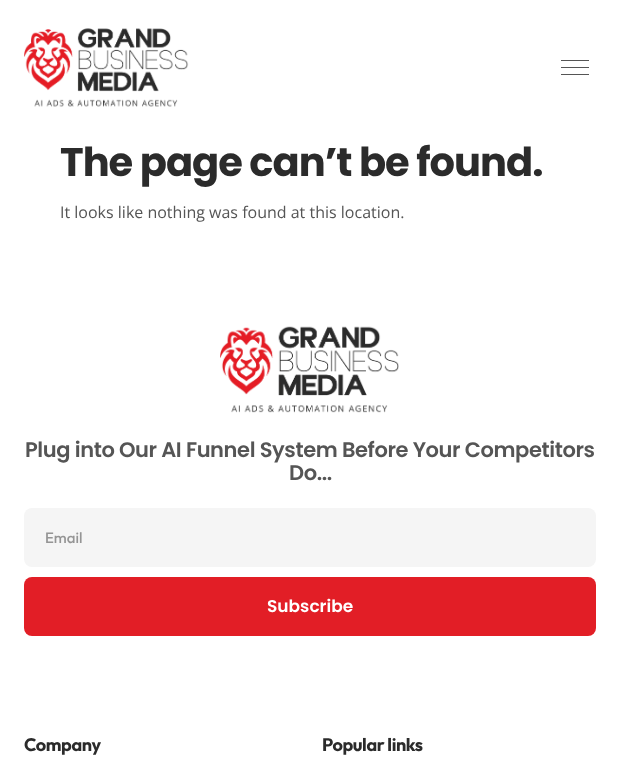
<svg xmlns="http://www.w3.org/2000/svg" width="620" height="761">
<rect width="100%" height="100%" fill="#fff"/>
<image x="24" y="28" width="165" height="79" href="media/1.png"/>
<rect x="561" y="60" width="28" height="1" fill="#555"/>
<rect x="561" y="67" width="28" height="1" fill="#555"/>
<rect x="561" y="74" width="28" height="1" fill="#555"/>
<text x="60" y="176" style="font-family:Poppins;font-size:40px;font-weight:bold;letter-spacing:-1px;fill:#2b2b2b">The page can’t be found.</text>
<text x="60" y="218" style="font-family:Open Sans;font-size:16px;fill:#555">It looks like nothing was found at this location.</text>
<image x="220" y="326" width="179" height="87" href="media/2.png"/>
<text x="25" y="457" style="font-family:Poppins;font-size:21px;font-weight:600;letter-spacing:-0.4px;fill:#555">Plug into Our AI Funnel System Before Your Competitors</text>
<text x="289" y="480" style="font-family:Poppins;font-size:21px;font-weight:600;letter-spacing:-0.4px;fill:#555">Do...</text>
<rect x="24" y="508" width="572" height="59" rx="8" fill="#f5f5f5"/>
<text x="45" y="543" style="font-family:Outfit;font-size:15px;font-weight:500;fill:#959595">Email</text>
<rect x="24" y="577" width="572" height="59" rx="8" fill="#e21e26"/>
<text x="267" y="612" style="font-family:Poppins;font-size:17px;font-weight:600;fill:#fff">Subscribe</text>
<text x="24" y="751" style="font-family:Outfit;font-size:18px;font-weight:bold;letter-spacing:-0.4px;fill:#2b2b2b">Company</text>
<text x="322" y="751" style="font-family:Outfit;font-size:18px;font-weight:bold;letter-spacing:-0.4px;fill:#2b2b2b">Popular links</text>
</svg>
